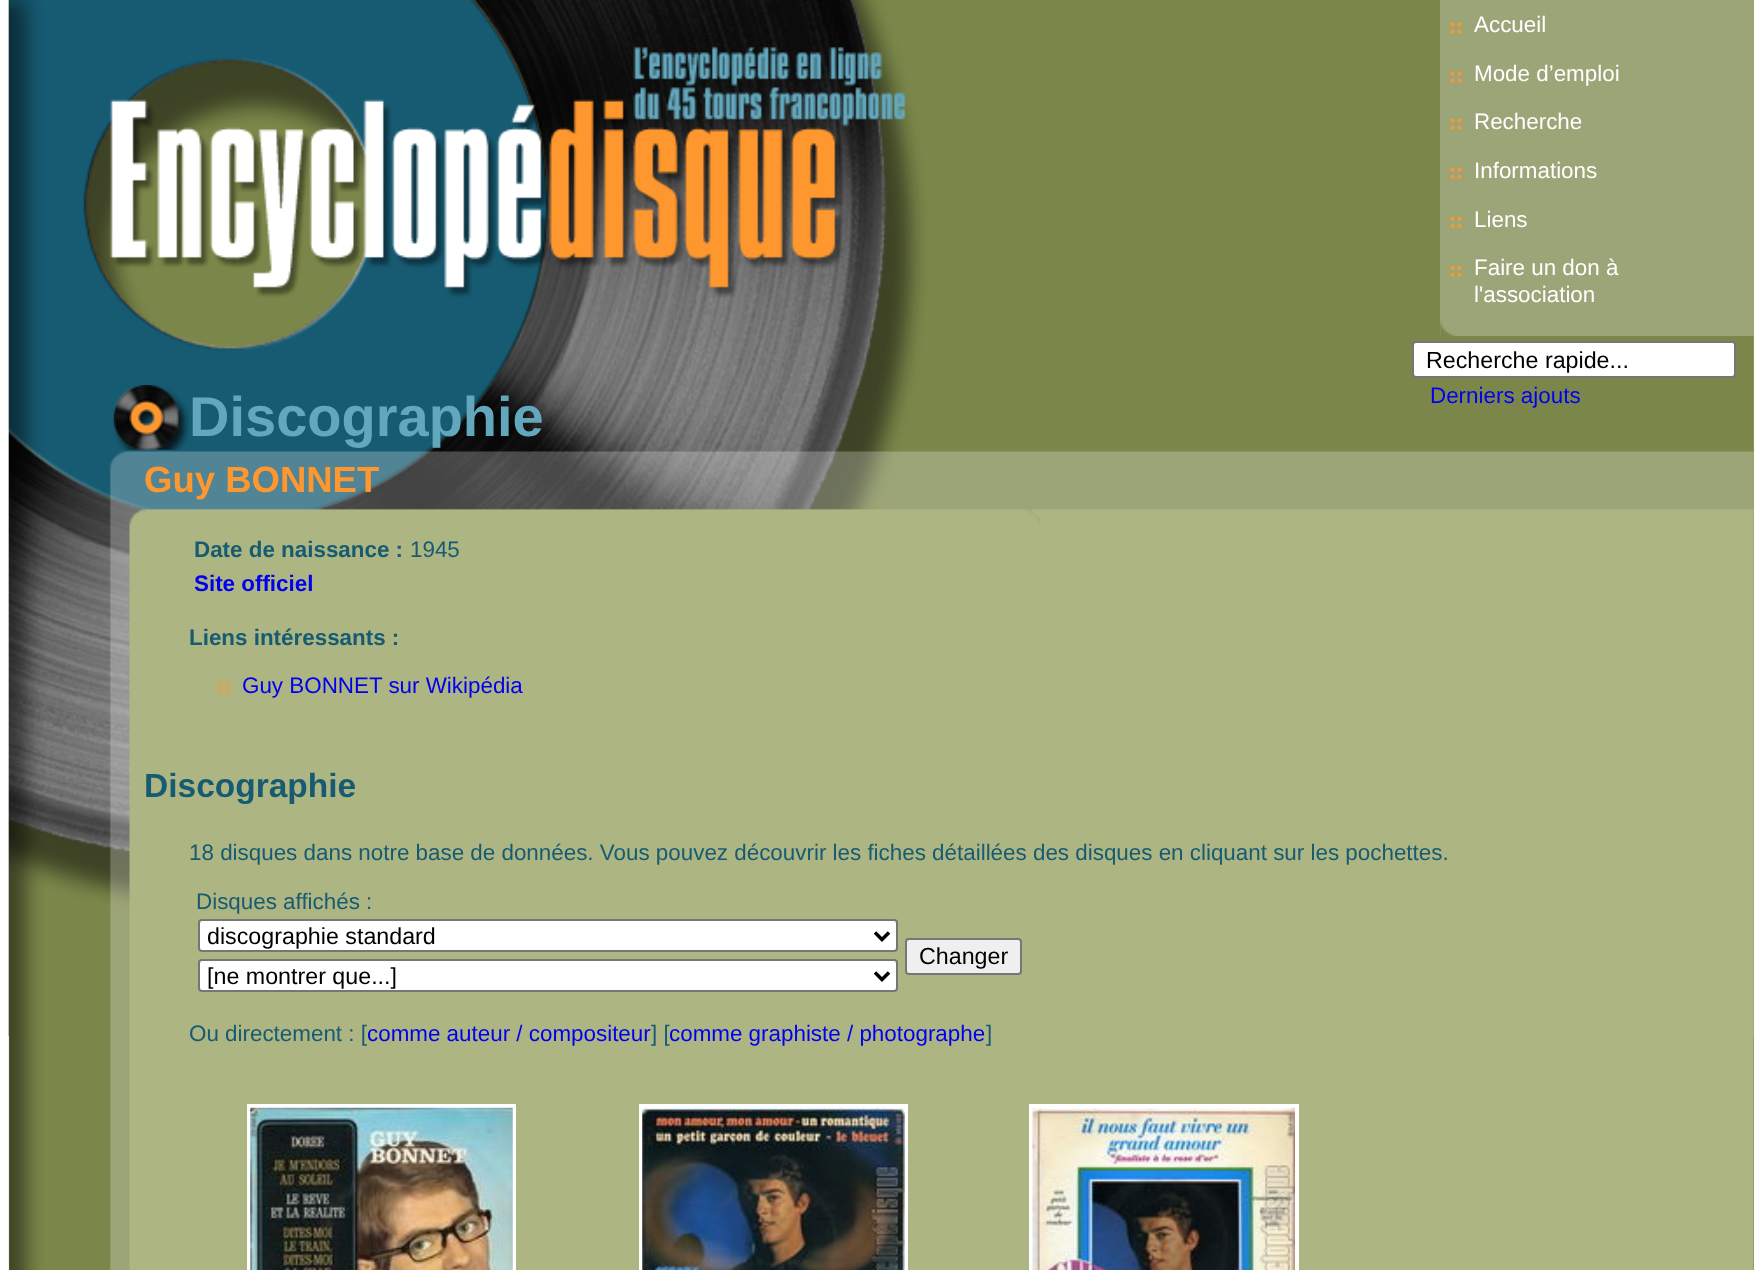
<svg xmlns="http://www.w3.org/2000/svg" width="1762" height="1270">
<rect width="100%" height="100%" fill="#fff"/>
<image x="1753" y="336" width="1" height="934" href="media/1.png"/>
<image x="8" y="0" width="1746" height="1270" href="media/2.png"/>
<image x="8" y="0" width="1746" height="1036" href="media/3.png"/>
<rect x="1440" width="314" height="336" fill="#9ca577"/>
<image x="1440" y="320" width="16" height="16" href="media/4.png"/>
<image x="1450" y="22" width="12" height="12" href="media/5.png"/>
<text x="1474" y="32" style="font-family:Liberation Sans;font-size:22.4px;fill:#fff">Accueil</text>
<image x="1450" y="71" width="12" height="12" href="media/5.png"/>
<text x="1474" y="81" style="font-family:Liberation Sans;font-size:22.4px;fill:#fff">Mode d’emploi</text>
<image x="1450" y="119" width="12" height="11" href="media/6.png"/>
<text x="1474" y="129" style="font-family:Liberation Sans;font-size:22.4px;fill:#fff">Recherche</text>
<image x="1450" y="168" width="12" height="11" href="media/6.png"/>
<text x="1474" y="178" style="font-family:Liberation Sans;font-size:22.4px;fill:#fff">Informations</text>
<image x="1450" y="217" width="12" height="11" href="media/6.png"/>
<text x="1474" y="227" style="font-family:Liberation Sans;font-size:22.4px;fill:#fff">Liens</text>
<image x="1450" y="266" width="12" height="11" href="media/6.png"/>
<text x="1474" y="275" style="font-family:Liberation Sans;font-size:22.4px;fill:#fff">Faire un don à</text>
<text x="1474" y="302" style="font-family:Liberation Sans;font-size:22.4px;fill:#fff">l'association</text>
<rect x="1413" y="342" width="322" height="35" rx="3" fill="#fff" stroke="#767676" stroke-width="2"/>
<text x="1426" y="368" style="font-family:Liberation Sans;font-size:23.25px;fill:#000">Recherche rapide...</text>
<text x="1430" y="403" style="font-family:Liberation Sans;font-size:22.4px;fill:#00e">Derniers ajouts</text>
<image x="113" y="385" width="76" height="65" href="media/7.png"/>
<text x="189" y="436" style="font-family:Liberation Sans;font-size:56px;font-weight:bold;fill:#63a7bc">Discographie</text>
<text x="144" y="492" style="font-family:Liberation Sans;font-size:36.5px;font-weight:bold;fill:#ff972f">Guy BONNET</text>
<text x="194" y="557" style="font-family:Liberation Sans;font-size:22.4px;font-weight:bold;fill:#175b72">Date de naissance :</text>
<text x="410" y="557" style="font-family:Liberation Sans;font-size:22.4px;fill:#175b72">1945</text>
<text x="194" y="591" style="font-family:Liberation Sans;font-size:22.4px;font-weight:bold;fill:#00e">Site officiel</text>
<text x="189" y="645" style="font-family:Liberation Sans;font-size:22.4px;font-weight:bold;fill:#175b72">Liens intéressants :</text>
<image x="218" y="682" width="12" height="11" href="media/8.png"/>
<text x="242" y="693" style="font-family:Liberation Sans;font-size:22.4px;fill:#00e">Guy BONNET sur Wikipédia</text>
<text x="144" y="797" style="font-family:Liberation Sans;font-size:33.5px;font-weight:bold;fill:#175b72">Discographie</text>
<text x="189" y="860" style="font-family:Liberation Sans;font-size:22.4px;fill:#175b72">18 disques dans notre base de données. Vous pouvez découvrir les fiches détaillées des disques en cliquant sur les pochettes.</text>
<text x="196" y="909" style="font-family:Liberation Sans;font-size:22.4px;fill:#175b72">Disques affichés :</text>
<rect x="199" y="920" width="698" height="31" rx="3" fill="#fff" stroke="#767676" stroke-width="2"/>
<path d="M875 932.5l7 7l7-7" fill="none" stroke="#000" stroke-width="3.5"/>
<text x="207" y="944" style="font-family:Liberation Sans;font-size:23.25px;fill:#000">discographie standard</text>
<rect x="906" y="939" width="115" height="35" rx="3" fill="#efefef" stroke="#767676" stroke-width="2"/>
<text x="919" y="964" style="font-family:Liberation Sans;font-size:23.25px;fill:#000">Changer</text>
<rect x="199" y="960" width="698" height="31" rx="3" fill="#fff" stroke="#767676" stroke-width="2"/>
<path d="M875 972.5l7 7l7-7" fill="none" stroke="#000" stroke-width="3.5"/>
<text x="207" y="984" style="font-family:Liberation Sans;font-size:23.25px;fill:#000">[ne montrer que...]</text>
<text x="189" y="1041" style="font-family:Liberation Sans;font-size:22.4px;fill:#175b72">Ou directement : [</text>
<text x="367" y="1041" style="font-family:Liberation Sans;font-size:22.4px;fill:#00e">comme auteur / compositeur</text>
<text x="651" y="1041" style="font-family:Liberation Sans;font-size:22.4px;fill:#175b72">] [</text>
<text x="669" y="1041" style="font-family:Liberation Sans;font-size:22.4px;fill:#00e">comme graphiste / photographe</text>
<text x="986" y="1041" style="font-family:Liberation Sans;font-size:22.4px;fill:#175b72">]</text>
<rect x="249" y="1106" width="265" height="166" fill="none" stroke="#fff" stroke-width="4"/>
<image x="250" y="1107" width="263" height="163" href="media/9.png"/>
<rect x="641" y="1106" width="265" height="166" fill="none" stroke="#fff" stroke-width="4"/>
<image x="642" y="1107" width="263" height="163" href="media/10.png"/>
<rect x="1031" y="1106" width="266" height="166" fill="none" stroke="#fff" stroke-width="4"/>
<image x="1032" y="1107" width="263" height="163" href="media/11.png"/>
</svg>
